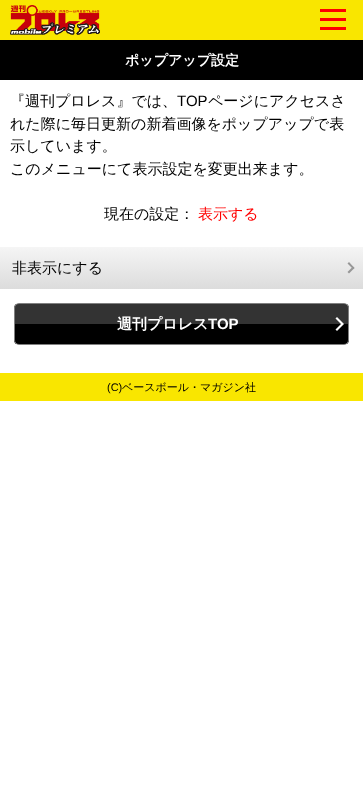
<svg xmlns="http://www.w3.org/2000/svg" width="363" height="804">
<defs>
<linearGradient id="g1" gradientUnits="userSpaceOnUse" x1="0" y1="247" x2="0" y2="289"><stop offset="0" stop-color="#f5f5f5"/><stop offset="1" stop-color="#dcdcdc"/></linearGradient>
<clipPath id="clip1"><rect x="14" y="303" width="335" height="42" rx="5"/></clipPath>
<linearGradient id="g2" gradientUnits="userSpaceOnUse" x1="334" y1="317" x2="334" y2="331"><stop offset="0" stop-color="#333"/><stop offset="0.5" stop-color="#333"/><stop offset="0.5" stop-color="#000"/><stop offset="1" stop-color="#000"/></linearGradient>
</defs>
<rect width="100%" height="100%" fill="#fff"/>
<rect width="363" height="40" fill="#f9e600"/>
<rect x="320" y="9" width="26" height="3" fill="#f00"/>
<rect x="320" y="18" width="26" height="3" fill="#f00"/>
<rect x="320" y="27" width="26" height="3" fill="#f00"/>
<image x="10" y="5" width="90" height="30" href="media/1.png"/>
<rect y="40" width="363" height="40" fill="#000"/>
<text x="125" y="65" style="font-family:WenQuanYi Zen Hei;font-size:14px;font-weight:bold;fill:#fff">ポップアップ設定</text>
<text x="10" y="106" style="font-family:WenQuanYi Zen Hei;font-size:15px;font-weight:500;fill:#000">『週刊プロレス』では、</text>
<text x="177" y="106" style="font-family:Liberation Sans;font-size:15px;fill:#000">TOP</text>
<text x="208" y="106" style="font-family:WenQuanYi Zen Hei;font-size:15px;font-weight:500;fill:#000">ページにアクセスさ</text>
<text x="10" y="129" style="font-family:WenQuanYi Zen Hei;font-size:15px;font-weight:500;fill:#000">れた際に毎日更新の新着画像をポップアップで表</text>
<text x="10" y="151" style="font-family:WenQuanYi Zen Hei;font-size:15px;font-weight:500;fill:#000">示しています。</text>
<text x="10" y="174" style="font-family:WenQuanYi Zen Hei;font-size:15px;font-weight:500;fill:#000">このメニューにて表示設定を変更出来ます。</text>
<text x="104" y="219" style="font-family:WenQuanYi Zen Hei;font-size:15px;font-weight:500;fill:#000">現在の設定：</text>
<text x="198" y="219" style="font-family:WenQuanYi Zen Hei;font-size:15px;font-weight:500;fill:#f00">表示する</text>
<rect y="247" width="363" height="42" fill="url(#g1)"/>
<text x="12" y="273" style="font-family:WenQuanYi Zen Hei;font-size:15px;font-weight:500;fill:#000">非表示にする</text>
<path d="M349 262l5.5 6l-1.5 1l-5.5-5.5z" fill="#979797"/>
<path d="M353 266.5l1.5 1.5l-5.5 5.5l-1.5-1.5z" fill="#979797"/>
<g clip-path="url(#clip1)">
<rect x="14" y="304" width="335" height="20" fill="#333"/>
<rect x="14" y="324" width="335" height="20" fill="#000"/>
</g>
<rect x="14.5" y="303.5" width="334" height="41" rx="4.5" fill="none" stroke="#808080"/>
<text x="117" y="329" style="font-family:WenQuanYi Zen Hei;font-size:15px;font-weight:bold;fill:#fff">週刊プロレス</text>
<text x="208" y="329" style="font-family:Liberation Sans;font-size:15px;font-weight:bold;fill:#fff">TOP</text>
<path d="M337 317l7 7l-7 7l-7-7z" fill="#fff"/>
<path d="M334 317l7 7l-7 7l-7-7z" fill="url(#g2)"/>
<rect y="373" width="363" height="28" fill="#f9e600"/>
<text x="107" y="391" style="font-family:Liberation Sans;font-size:11px;fill:#000">(C)</text>
<text x="122" y="391" style="font-family:WenQuanYi Zen Hei;font-size:11px;font-weight:500;fill:#000">ベースボール・マガジン社</text>
</svg>
